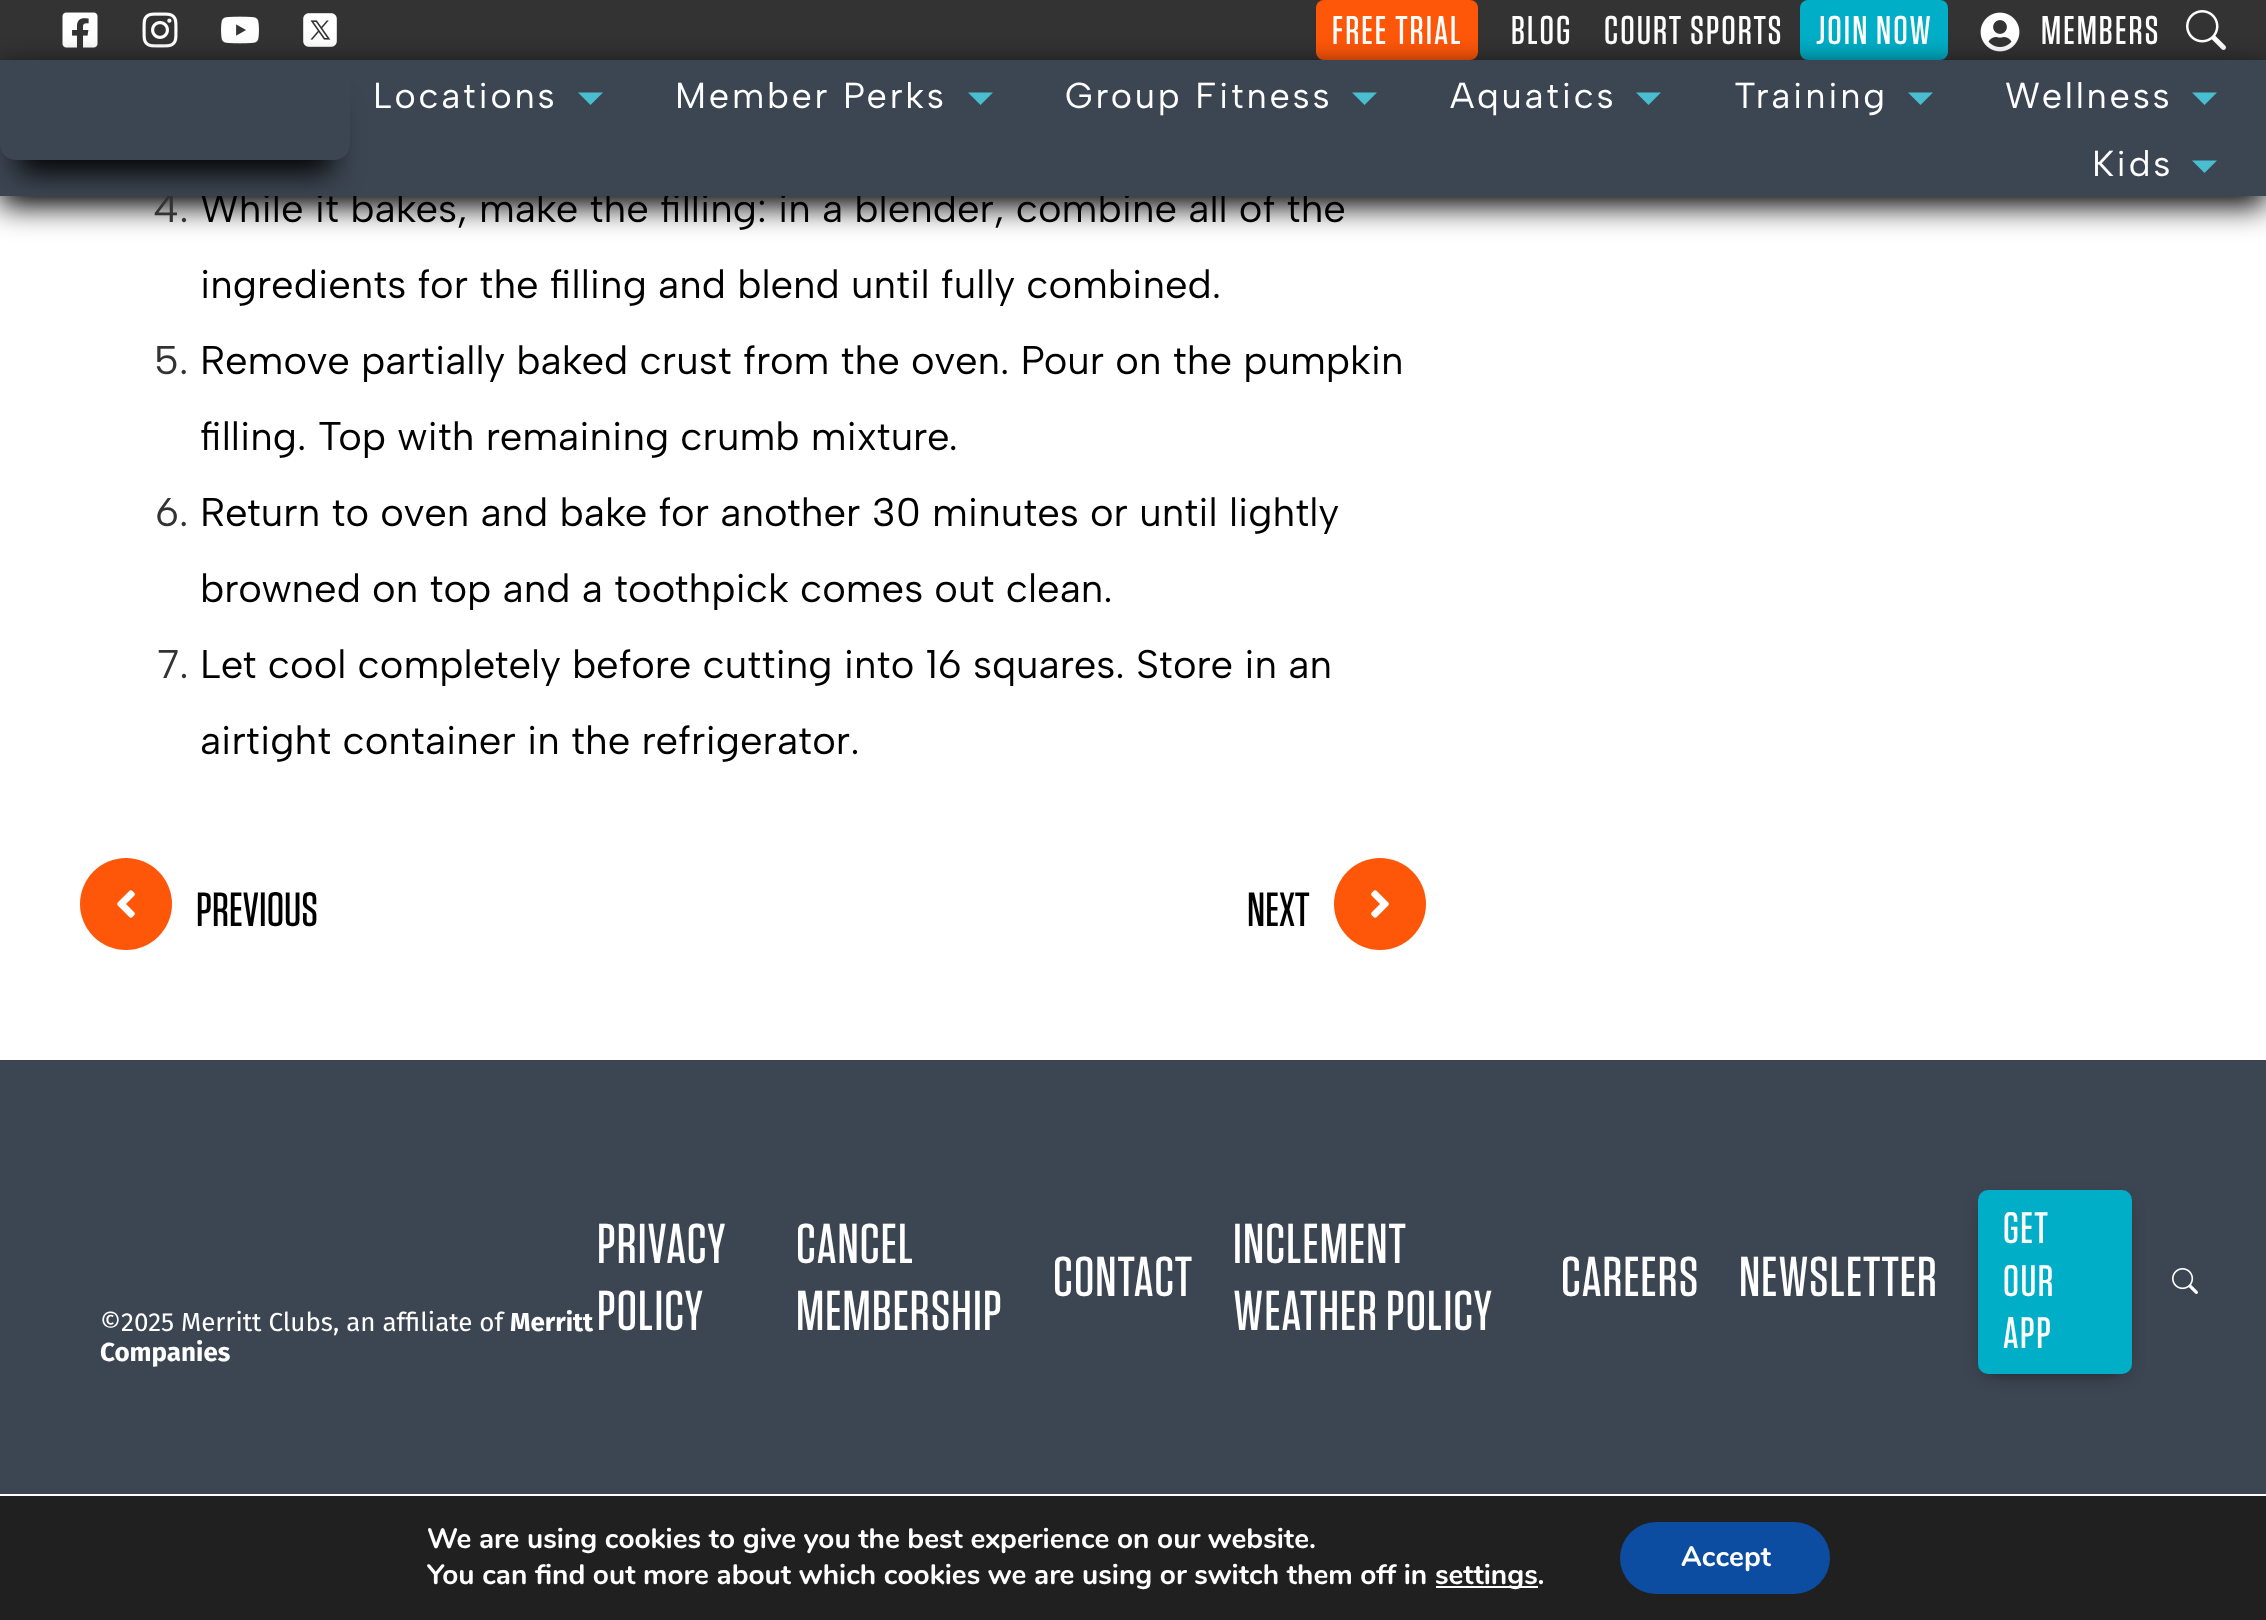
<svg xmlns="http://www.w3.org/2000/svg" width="2266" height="1620">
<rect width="100%" height="100%" fill="#fff"/>
<rect width="2266" height="60" fill="#333"/>
<image x="62" y="12" width="36" height="36" href="media/1.png"/>
<image x="142" y="12" width="36" height="36" href="media/2.png"/>
<image x="221" y="16" width="38" height="28" href="media/3.png"/>
<image x="303" y="13" width="34" height="34" href="media/4.png"/>
<rect x="1316" width="162" height="60" rx="8" fill="#ff5709"/>
<text x="1332" y="44" style="font-family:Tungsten;font-size:40px;font-weight:500;letter-spacing:2px;fill:#fff">FREE TRIAL</text>
<text x="1511" y="44" style="font-family:Tungsten;font-size:40px;font-weight:500;letter-spacing:2px;fill:#fff">BLOG</text>
<text x="1604" y="44" style="font-family:Tungsten;font-size:40px;font-weight:500;letter-spacing:2px;fill:#fff">COURT SPORTS</text>
<rect x="1800" width="148" height="60" rx="8" fill="#00aec7"/>
<text x="1816" y="44" style="font-family:Tungsten;font-size:40px;font-weight:500;letter-spacing:2px;fill:#fff">JOIN NOW</text>
<image x="1980" y="12" width="40" height="40" href="media/5.png"/>
<text x="2041" y="44" style="font-family:Tungsten;font-size:40px;font-weight:500;letter-spacing:2px;fill:#fff">MEMBERS</text>
<image x="2186" y="10" width="40" height="40" href="media/6.png"/>
<rect y="70" width="2266" height="136" fill="#000" filter="blur(15px)"/>
<text x="153" y="222" style="font-family:Albert Sans;font-size:40px;fill:#333">4.</text>
<text x="200" y="222" style="font-family:Albert Sans;font-size:40px;fill:#000">While it bakes, make the filling: in a blender, combine all of the</text>
<rect y="60" width="2266" height="136" fill="#3c4652"/>
<rect x="18" y="108" width="314" height="64" fill="#000" filter="blur(15px)"/>
<path d="M0 60h350v84c0 9-7 16-16 16h-318c-9 0-16-7-16-16z" fill="#3c4652"/>
<text x="373" y="108" style="font-family:Albert Sans;font-size:36px;letter-spacing:2.75px;fill:#fff">Locations</text>
<path d="M590.5 105l-12.5-12.5h25z" fill="#49bed0"/>
<text x="675" y="108" style="font-family:Albert Sans;font-size:36px;letter-spacing:2.75px;fill:#fff">Member Perks</text>
<path d="M980.5 105l-12.5-12.5h25z" fill="#49bed0"/>
<text x="1065" y="108" style="font-family:Albert Sans;font-size:36px;letter-spacing:2.75px;fill:#fff">Group Fitness</text>
<path d="M1364.5 105l-12.5-12.5h25z" fill="#49bed0"/>
<text x="1450" y="108" style="font-family:Albert Sans;font-size:36px;letter-spacing:2.75px;fill:#fff">Aquatics</text>
<path d="M1648.5 105l-12.5-12.5h25z" fill="#49bed0"/>
<text x="1734" y="108" style="font-family:Albert Sans;font-size:36px;letter-spacing:2.75px;fill:#fff">Training</text>
<path d="M1920.5 105l-12.5-12.5h25z" fill="#49bed0"/>
<text x="2005" y="108" style="font-family:Albert Sans;font-size:36px;letter-spacing:2.75px;fill:#fff">Wellness</text>
<path d="M2204.5 105l-12.5-12.5h25z" fill="#49bed0"/>
<text x="2092" y="176" style="font-family:Albert Sans;font-size:36px;letter-spacing:2.75px;fill:#fff">Kids</text>
<path d="M2204.5 173l-12.5-12.5h25z" fill="#49bed0"/>
<text x="200" y="298" style="font-family:Albert Sans;font-size:40px;fill:#000">ingredients for the filling and blend until fully combined.</text>
<text x="154" y="374" style="font-family:Albert Sans;font-size:40px;fill:#333">5.</text>
<text x="200" y="374" style="font-family:Albert Sans;font-size:40px;fill:#000">Remove partially baked crust from the oven. Pour on the pumpkin</text>
<text x="200" y="450" style="font-family:Albert Sans;font-size:40px;fill:#000">filling. Top with remaining crumb mixture.</text>
<text x="155" y="526" style="font-family:Albert Sans;font-size:40px;fill:#333">6.</text>
<text x="200" y="526" style="font-family:Albert Sans;font-size:40px;fill:#000">Return to oven and bake for another 30 minutes or until lightly</text>
<text x="200" y="602" style="font-family:Albert Sans;font-size:40px;fill:#000">browned on top and a toothpick comes out clean.</text>
<text x="157" y="678" style="font-family:Albert Sans;font-size:40px;fill:#333">7.</text>
<text x="200" y="678" style="font-family:Albert Sans;font-size:40px;fill:#000">Let cool completely before cutting into 16 squares. Store in an</text>
<text x="200" y="754" style="font-family:Albert Sans;font-size:40px;fill:#000">airtight container in the refrigerator.</text>
<circle cx="126" cy="904" r="46" fill="#ff5709"/>
<image x="117" y="890" width="18" height="28" href="media/7.png"/>
<text x="196" y="926" style="font-family:Tungsten;font-size:48px;font-weight:500;fill:#000">PREVIOUS</text>
<text x="1247" y="926" style="font-family:Tungsten;font-size:48px;font-weight:500;fill:#000">NEXT</text>
<circle cx="1380" cy="904" r="46" fill="#ff5709"/>
<image x="1371" y="890" width="18" height="28" href="media/8.png"/>
<rect y="1060" width="2266" height="434" fill="#3c4652"/>
<text x="100" y="1331" style="font-family:Fira Sans;font-size:26px;fill:#fff">©2025 Merritt Clubs, an affiliate of</text>
<text x="510" y="1331" style="font-family:Fira Sans;font-size:26px;font-weight:bold;fill:#fff">Merritt</text>
<text x="100" y="1361" style="font-family:Fira Sans;font-size:26px;font-weight:bold;fill:#fff">Companies</text>
<text x="597" y="1263" style="font-family:Tungsten;font-size:56px;font-weight:500;letter-spacing:1.1px;fill:#fff">PRIVACY</text>
<text x="597" y="1330" style="font-family:Tungsten;font-size:56px;font-weight:500;letter-spacing:1.1px;fill:#fff">POLICY</text>
<text x="796" y="1263" style="font-family:Tungsten;font-size:56px;font-weight:500;letter-spacing:1.1px;fill:#fff">CANCEL</text>
<text x="796" y="1330" style="font-family:Tungsten;font-size:56px;font-weight:500;letter-spacing:1.1px;fill:#fff">MEMBERSHIP</text>
<text x="1053" y="1296" style="font-family:Tungsten;font-size:56px;font-weight:500;letter-spacing:1.1px;fill:#fff">CONTACT</text>
<text x="1233" y="1263" style="font-family:Tungsten;font-size:56px;font-weight:500;letter-spacing:1.1px;fill:#fff">INCLEMENT</text>
<text x="1233" y="1330" style="font-family:Tungsten;font-size:56px;font-weight:500;letter-spacing:1.1px;fill:#fff">WEATHER POLICY</text>
<text x="1561" y="1296" style="font-family:Tungsten;font-size:56px;font-weight:500;letter-spacing:1.1px;fill:#fff">CAREERS</text>
<text x="1739" y="1296" style="font-family:Tungsten;font-size:56px;font-weight:500;letter-spacing:1.1px;fill:#fff">NEWSLETTER</text>
<rect x="1988" y="1206" width="134" height="164" fill="#000000bf" filter="blur(10px)"/>
<rect x="1978" y="1190" width="154" height="184" rx="10" fill="#00aec7"/>
<text x="2003" y="1243" style="font-family:Tungsten;font-size:44px;font-weight:500;letter-spacing:1.5px;fill:#fff">GET</text>
<text x="2003" y="1296" style="font-family:Tungsten;font-size:44px;font-weight:500;letter-spacing:1.5px;fill:#fff">OUR</text>
<text x="2003" y="1348" style="font-family:Tungsten;font-size:44px;font-weight:500;letter-spacing:1.5px;fill:#fff">APP</text>
<image x="2172" y="1268" width="26" height="26" href="media/9.png"/>
<rect y="1496" width="2266" height="124" fill="#202020"/>
<text x="427" y="1548" style="font-family:Nunito;font-size:28px;font-weight:bold;fill:#fff">We are using cookies to give you the best experience on our website.</text>
<text x="427" y="1584" style="font-family:Nunito;font-size:28px;font-weight:bold;fill:#fff">You can find out more about which cookies we are using or switch them off in</text>
<rect x="1436" y="1586" width="102" height="2" fill="#fff"/>
<text x="1435" y="1584" style="font-family:Nunito;font-size:28px;font-weight:bold;fill:#fff">settings.</text>
<rect x="1620" y="1522" width="210" height="72" rx="36" fill="#0c4da2"/>
<text x="1681" y="1566" style="font-family:Nunito;font-size:28px;font-weight:bold;fill:#fff">Accept</text>
</svg>
